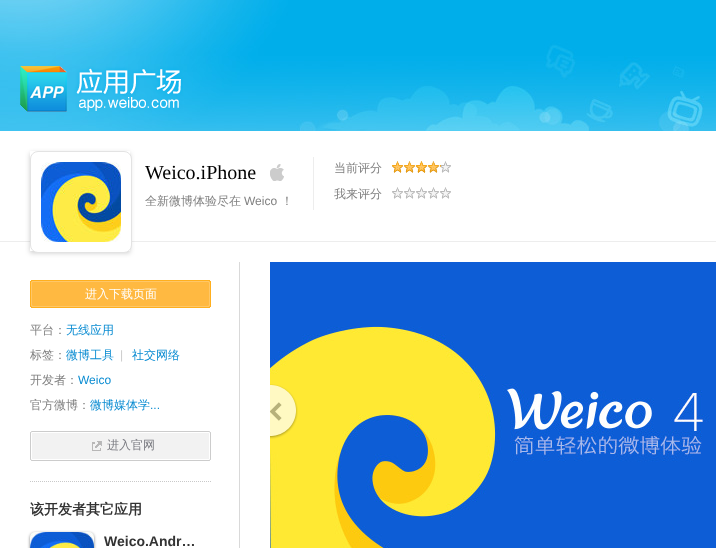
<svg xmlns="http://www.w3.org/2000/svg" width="716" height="548">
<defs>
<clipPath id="clip1"><path d="M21 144h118v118h-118zm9 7h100v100h-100z" clip-rule="evenodd"/></clipPath>
</defs>
<rect width="100%" height="100%" fill="#fff"/>
<image x="0" y="0" width="716" height="131" href="media/1.png"/>
<image x="20" y="66" width="163" height="46" href="media/2.png"/>
<rect y="241" width="716" height="1" fill="#ededed"/>
<g clip-path="url(#clip1)">
<rect x="30" y="153" width="100" height="100" fill="#00000033" filter="blur(2.5px)"/>
</g>
<rect x="30.5" y="151.5" width="101" height="101" rx="7.5" fill="#fff" stroke="#e3e3e3"/>
<image x="41" y="162" width="80" height="80" href="media/3.png"/>
<rect x="313" y="157" width="1" height="53" fill="#ededed"/>
<text x="145" y="179" style="font-family:Liberation Serif;font-size:20px;fill:#000">Weico.iPhone</text>
<image x="270" y="164" width="14" height="17" href="media/4.png"/>
<text x="145" y="205" style="font-family:WenQuanYi Zen Hei;font-size:12px;font-weight:500;fill:#808080">全新微博体验尽在</text>
<text x="244" y="205" style="font-family:Liberation Sans;font-size:12px;fill:#808080">Weico</text>
<text x="281" y="205" style="font-family:WenQuanYi Zen Hei;font-size:12px;font-weight:500;fill:#808080">！</text>
<text x="334" y="172" style="font-family:WenQuanYi Zen Hei;font-size:12px;font-weight:500;fill:#808080">当前评分</text>
<image x="392" y="161" width="59" height="12" href="media/5.png"/>
<image x="392" y="161" width="49" height="12" href="media/6.png"/>
<text x="334" y="198" style="font-family:WenQuanYi Zen Hei;font-size:12px;font-weight:500;fill:#808080">我来评分</text>
<image x="392" y="187" width="59" height="12" href="media/5.png"/>
<image x="30" y="280" width="181" height="28" href="media/7.png"/>
<text x="85" y="298" style="font-family:WenQuanYi Zen Hei;font-size:12px;font-weight:500;fill:#fff">进入下载页面</text>
<text x="30" y="334" style="font-family:WenQuanYi Zen Hei;font-size:12px;font-weight:500;fill:#808080">平台：</text>
<text x="66" y="334" style="font-family:WenQuanYi Zen Hei;font-size:12px;font-weight:500;fill:#0a8cd2">无线应用</text>
<text x="30" y="359" style="font-family:WenQuanYi Zen Hei;font-size:12px;font-weight:500;fill:#808080">标签：</text>
<text x="66" y="359" style="font-family:WenQuanYi Zen Hei;font-size:12px;font-weight:500;fill:#0a8cd2">微博工具</text>
<text x="120" y="359" style="font-family:Liberation Sans;font-size:12px;fill:#ccc">|</text>
<text x="132" y="359" style="font-family:WenQuanYi Zen Hei;font-size:12px;font-weight:500;fill:#0a8cd2">社交网络</text>
<text x="30" y="384" style="font-family:WenQuanYi Zen Hei;font-size:12px;font-weight:500;fill:#808080">开发者：</text>
<text x="78" y="384" style="font-family:Liberation Sans;font-size:12px;fill:#0a8cd2">Weico</text>
<text x="30" y="409" style="font-family:WenQuanYi Zen Hei;font-size:12px;font-weight:500;fill:#808080">官方微博：</text>
<text x="90" y="409" style="font-family:WenQuanYi Zen Hei;font-size:12px;font-weight:500;fill:#0a8cd2">微博媒体学</text>
<text x="150" y="409" style="font-family:Liberation Sans;font-size:12px;fill:#0a8cd2">...</text>
<image x="30" y="431" width="2" height="30" href="media/8.png"/>
<image x="32" y="431" width="179" height="30" href="media/9.png"/>
<image x="92" y="441" width="10" height="10" href="media/10.png"/>
<text x="107" y="449" style="font-family:WenQuanYi Zen Hei;font-size:12px;font-weight:500;fill:#797a80">进入官网</text>
<path d="M30 481.5h181" fill="none" stroke="#c9c9c9" stroke-dasharray="1 1"/>
<text x="30" y="514" style="font-family:WenQuanYi Zen Hei;font-size:14px;font-weight:bold;fill:#333">该开发者其它应用</text>
<rect x="30" y="533" width="64" height="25" rx="5" fill="#00000080" filter="blur(1.5px)"/>
<image x="30" y="532" width="64" height="16" href="media/11.png"/>
<text x="104" y="546" style="font-family:Liberation Sans;font-size:14px;font-weight:bold;fill:#333">Weico.Andr…</text>
<rect x="239" y="262" width="1" height="286" fill="#d9d9d9"/>
<image x="270" y="262" width="446" height="286" href="media/12.png"/>
<image x="270" y="384" width="28" height="55" href="media/13.png"/>
</svg>
